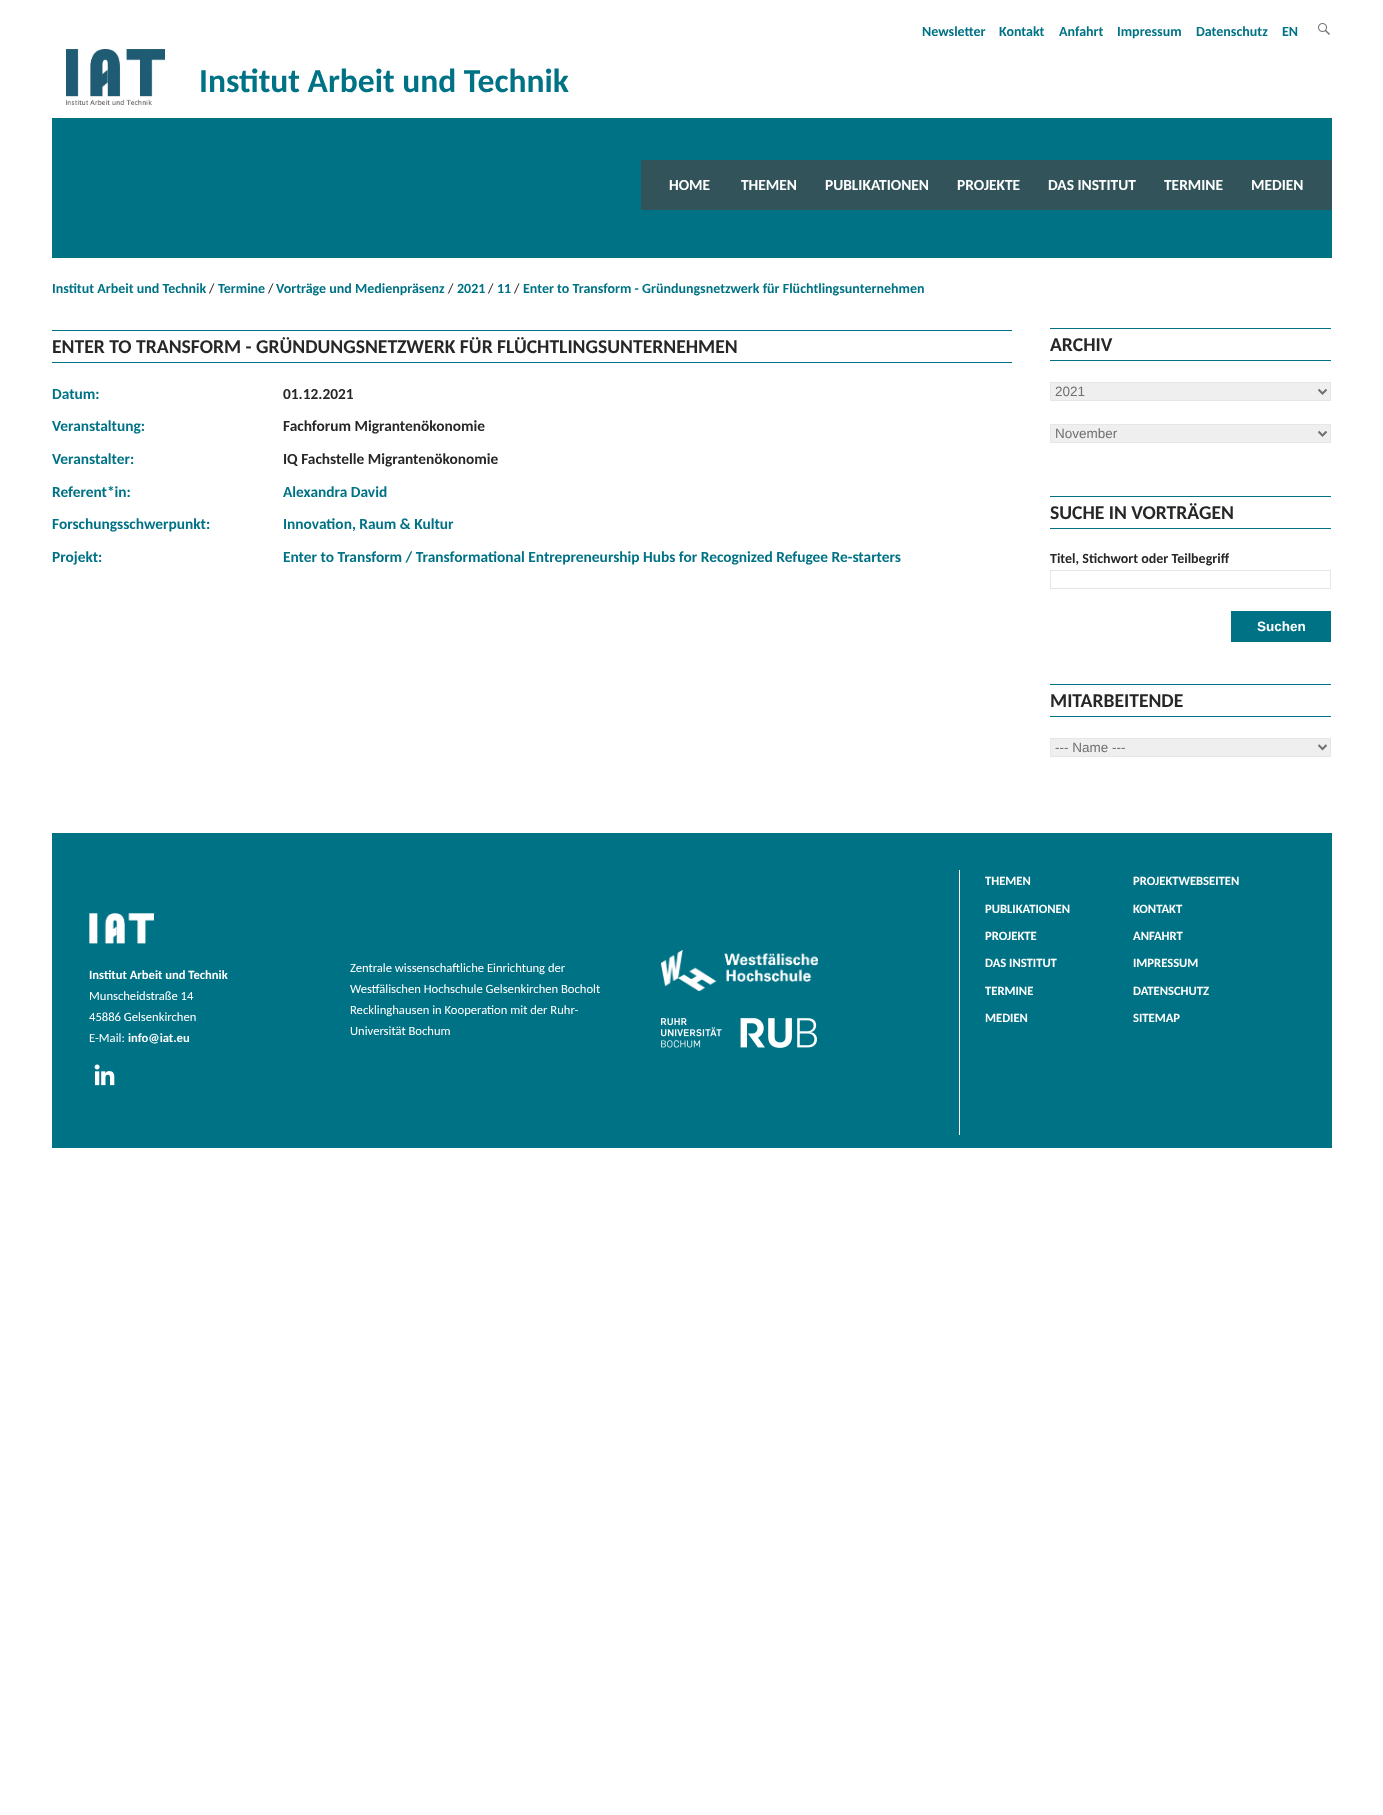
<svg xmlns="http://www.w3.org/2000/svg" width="1383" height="1815">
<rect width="100%" height="100%" fill="#fff"/>
<text x="922" y="36" style="font-family:Carlito;font-size:14px;font-weight:bold;fill:#007286">Newsletter</text>
<text x="999" y="36" style="font-family:Carlito;font-size:14px;font-weight:bold;fill:#007286">Kontakt</text>
<text x="1059" y="36" style="font-family:Carlito;font-size:14px;font-weight:bold;fill:#007286">Anfahrt</text>
<text x="1117" y="36" style="font-family:Carlito;font-size:14px;font-weight:bold;fill:#007286">Impressum</text>
<text x="1196" y="36" style="font-family:Carlito;font-size:14px;font-weight:bold;fill:#007286">Datenschutz</text>
<text x="1282" y="36" style="font-family:Carlito;font-size:14px;font-weight:bold;fill:#007286">EN</text>
<image x="1318" y="23" width="12" height="12" href="media/1.png"/>
<image x="66" y="49" width="99" height="56" href="media/2.png"/>
<text x="199" y="92" style="font-family:Carlito;font-size:33.6px;font-weight:bold;fill:#007286">Institut Arbeit und Technik</text>
<rect x="52" y="118" width="1280" height="140" fill="#007286"/>
<rect x="641" y="160" width="691" height="50" fill="#315359"/>
<text x="669" y="190" style="font-family:Carlito;font-size:15.4px;font-weight:bold;fill:#fff">HOME</text>
<text x="741" y="190" style="font-family:Carlito;font-size:15.4px;font-weight:bold;fill:#fff">THEMEN</text>
<text x="825" y="190" style="font-family:Carlito;font-size:15.4px;font-weight:bold;fill:#fff">PUBLIKATIONEN</text>
<text x="957" y="190" style="font-family:Carlito;font-size:15.4px;font-weight:bold;fill:#fff">PROJEKTE</text>
<text x="1048" y="190" style="font-family:Carlito;font-size:15.4px;font-weight:bold;fill:#fff">DAS INSTITUT</text>
<text x="1164" y="190" style="font-family:Carlito;font-size:15.4px;font-weight:bold;fill:#fff">TERMINE</text>
<text x="1251" y="190" style="font-family:Carlito;font-size:15.4px;font-weight:bold;fill:#fff">MEDIEN</text>
<text x="52" y="293" style="font-family:Carlito;font-size:14px;font-weight:bold;fill:#007286">Institut Arbeit und Technik</text>
<text x="209" y="293" style="font-family:Carlito;font-size:14px;fill:#272727">/</text>
<text x="218" y="293" style="font-family:Carlito;font-size:14px;font-weight:bold;fill:#007286">Termine</text>
<text x="268" y="293" style="font-family:Carlito;font-size:14px;fill:#272727">/</text>
<text x="276" y="293" style="font-family:Carlito;font-size:14px;font-weight:bold;fill:#007286">Vorträge und Medienpräsenz</text>
<text x="448" y="293" style="font-family:Carlito;font-size:14px;fill:#272727">/</text>
<text x="457" y="293" style="font-family:Carlito;font-size:14px;font-weight:bold;fill:#007286">2021</text>
<text x="488" y="293" style="font-family:Carlito;font-size:14px;fill:#272727">/</text>
<text x="497" y="293" style="font-family:Carlito;font-size:14px;font-weight:bold;fill:#007286">11</text>
<text x="514" y="293" style="font-family:Carlito;font-size:14px;fill:#272727">/</text>
<text x="523" y="293" style="font-family:Carlito;font-size:14px;font-weight:bold;fill:#007286">Enter to Transform - Gründungsnetzwerk für Flüchtlingsunternehmen</text>
<rect x="52" y="330" width="960" height="1" fill="#007286"/>
<rect x="52" y="362" width="960" height="1" fill="#007286"/>
<text x="52" y="353" style="font-family:Carlito;font-size:19.6px;font-weight:bold;fill:#272727">ENTER TO TRANSFORM - GRÜNDUNGSNETZWERK FÜR FLÜCHTLINGSUNTERNEHMEN</text>
<text x="52" y="399" style="font-family:Carlito;font-size:15.4px;font-weight:bold;fill:#007286">Datum:</text>
<text x="283" y="399" style="font-family:Carlito;font-size:15.4px;font-weight:bold;fill:#272727">01.12.2021</text>
<text x="52" y="431" style="font-family:Carlito;font-size:15.4px;font-weight:bold;fill:#007286">Veranstaltung:</text>
<text x="283" y="431" style="font-family:Carlito;font-size:15.4px;font-weight:bold;fill:#272727">Fachforum Migrantenökonomie</text>
<text x="52" y="464" style="font-family:Carlito;font-size:15.4px;font-weight:bold;fill:#007286">Veranstalter:</text>
<text x="283" y="464" style="font-family:Carlito;font-size:15.4px;font-weight:bold;fill:#272727">IQ Fachstelle Migrantenökonomie</text>
<text x="52" y="497" style="font-family:Carlito;font-size:15.4px;font-weight:bold;fill:#007286">Referent*in:</text>
<text x="283" y="497" style="font-family:Carlito;font-size:15.4px;font-weight:bold;fill:#007286">Alexandra David</text>
<text x="52" y="529" style="font-family:Carlito;font-size:15.4px;font-weight:bold;fill:#007286">Forschungsschwerpunkt:</text>
<text x="283" y="529" style="font-family:Carlito;font-size:15.4px;font-weight:bold;fill:#007286">Innovation, Raum &amp; Kultur</text>
<text x="52" y="562" style="font-family:Carlito;font-size:15.4px;font-weight:bold;fill:#007286">Projekt:</text>
<text x="283" y="562" style="font-family:Carlito;font-size:15.4px;font-weight:bold;fill:#007286">Enter to Transform / Transformational Entrepreneurship Hubs for Recognized Refugee Re-starters</text>
<rect x="1050" y="328" width="281" height="1" fill="#007286"/>
<rect x="1050" y="360" width="281" height="1" fill="#007286"/>
<text x="1050" y="351" style="font-family:Carlito;font-size:19.6px;font-weight:bold;fill:#272727">ARCHIV</text>
<rect x="1050.5" y="382.5" width="280" height="18" fill="#efefef" stroke="#e6e6e6"/>
<path d="M1318.5 389.5l4 4l4-4" fill="none" stroke="#707070" stroke-width="2"/>
<text x="1055" y="396" style="font-family:Liberation Sans;font-size:13.5px;fill:#707070">2021</text>
<rect x="1050.5" y="424.5" width="280" height="18" fill="#efefef" stroke="#e6e6e6"/>
<path d="M1318.5 431.5l4 4l4-4" fill="none" stroke="#707070" stroke-width="2"/>
<text x="1055" y="438" style="font-family:Liberation Sans;font-size:13.5px;fill:#707070">November</text>
<rect x="1050" y="496" width="281" height="1" fill="#007286"/>
<rect x="1050" y="528" width="281" height="1" fill="#007286"/>
<text x="1050" y="519" style="font-family:Carlito;font-size:19.6px;font-weight:bold;fill:#272727">SUCHE IN VORTRÄGEN</text>
<text x="1050" y="563" style="font-family:Carlito;font-size:14px;font-weight:bold;fill:#272727">Titel, Stichwort oder Teilbegriff</text>
<rect x="1050.5" y="570.5" width="280" height="18" fill="none" stroke="#e6e6e6"/>
<rect x="1231" y="611" width="100" height="31" fill="#007286"/>
<text x="1257" y="631" style="font-family:Liberation Sans;font-size:13.5px;font-weight:bold;fill:#fff">Suchen</text>
<rect x="1050" y="684" width="281" height="1" fill="#007286"/>
<rect x="1050" y="716" width="281" height="1" fill="#007286"/>
<text x="1050" y="707" style="font-family:Carlito;font-size:19.6px;font-weight:bold;fill:#272727">MITARBEITENDE</text>
<rect x="1050.5" y="738.5" width="280" height="18" fill="#efefef" stroke="#e6e6e6"/>
<path d="M1318.5 745l4 4l4-4" fill="none" stroke="#707070" stroke-width="2"/>
<text x="1055" y="752" style="font-family:Liberation Sans;font-size:13.5px;fill:#707070">--- Name ---</text>
<rect x="52" y="833" width="1280" height="315" fill="#007286"/>
<image x="89" y="913" width="65" height="31" href="media/3.png"/>
<text x="89" y="979" style="font-family:Carlito;font-size:12.6px;font-weight:bold;fill:#fff">Institut Arbeit und Technik</text>
<text x="89" y="1000" style="font-family:Carlito;font-size:12.6px;fill:#fff">Munscheidstraße 14</text>
<text x="89" y="1021" style="font-family:Carlito;font-size:12.6px;fill:#fff">45886 Gelsenkirchen</text>
<text x="89" y="1042" style="font-family:Carlito;font-size:12.6px;fill:#fff">E-Mail:</text>
<text x="128" y="1042" style="font-family:Carlito;font-size:12.6px;font-weight:bold;fill:#fff">info@iat.eu</text>
<image x="94" y="1064" width="21" height="22" href="media/4.png"/>
<text x="350" y="972" style="font-family:Carlito;font-size:12.6px;fill:#fff">Zentrale wissenschaftliche Einrichtung der</text>
<text x="350" y="993" style="font-family:Carlito;font-size:12.6px;fill:#fff">Westfälischen Hochschule Gelsenkirchen Bocholt</text>
<text x="350" y="1014" style="font-family:Carlito;font-size:12.6px;fill:#fff">Recklinghausen in Kooperation mit der Ruhr-</text>
<text x="350" y="1035" style="font-family:Carlito;font-size:12.6px;fill:#fff">Universität Bochum</text>
<image x="661" y="950" width="157" height="41" href="media/5.png"/>
<image x="661" y="1018" width="156" height="30" href="media/6.png"/>
<rect x="959" y="870" width="1" height="265" fill="#fff"/>
<text x="985" y="885" style="font-family:Carlito;font-size:12.6px;font-weight:bold;fill:#fff">THEMEN</text>
<text x="985" y="913" style="font-family:Carlito;font-size:12.6px;font-weight:bold;fill:#fff">PUBLIKATIONEN</text>
<text x="985" y="940" style="font-family:Carlito;font-size:12.6px;font-weight:bold;fill:#fff">PROJEKTE</text>
<text x="985" y="967" style="font-family:Carlito;font-size:12.6px;font-weight:bold;fill:#fff">DAS INSTITUT</text>
<text x="985" y="995" style="font-family:Carlito;font-size:12.6px;font-weight:bold;fill:#fff">TERMINE</text>
<text x="985" y="1022" style="font-family:Carlito;font-size:12.6px;font-weight:bold;fill:#fff">MEDIEN</text>
<text x="1133" y="885" style="font-family:Carlito;font-size:12.6px;font-weight:bold;fill:#fff">PROJEKTWEBSEITEN</text>
<text x="1133" y="913" style="font-family:Carlito;font-size:12.6px;font-weight:bold;fill:#fff">KONTAKT</text>
<text x="1133" y="940" style="font-family:Carlito;font-size:12.6px;font-weight:bold;fill:#fff">ANFAHRT</text>
<text x="1133" y="967" style="font-family:Carlito;font-size:12.6px;font-weight:bold;fill:#fff">IMPRESSUM</text>
<text x="1133" y="995" style="font-family:Carlito;font-size:12.6px;font-weight:bold;fill:#fff">DATENSCHUTZ</text>
<text x="1133" y="1022" style="font-family:Carlito;font-size:12.6px;font-weight:bold;fill:#fff">SITEMAP</text>
</svg>
